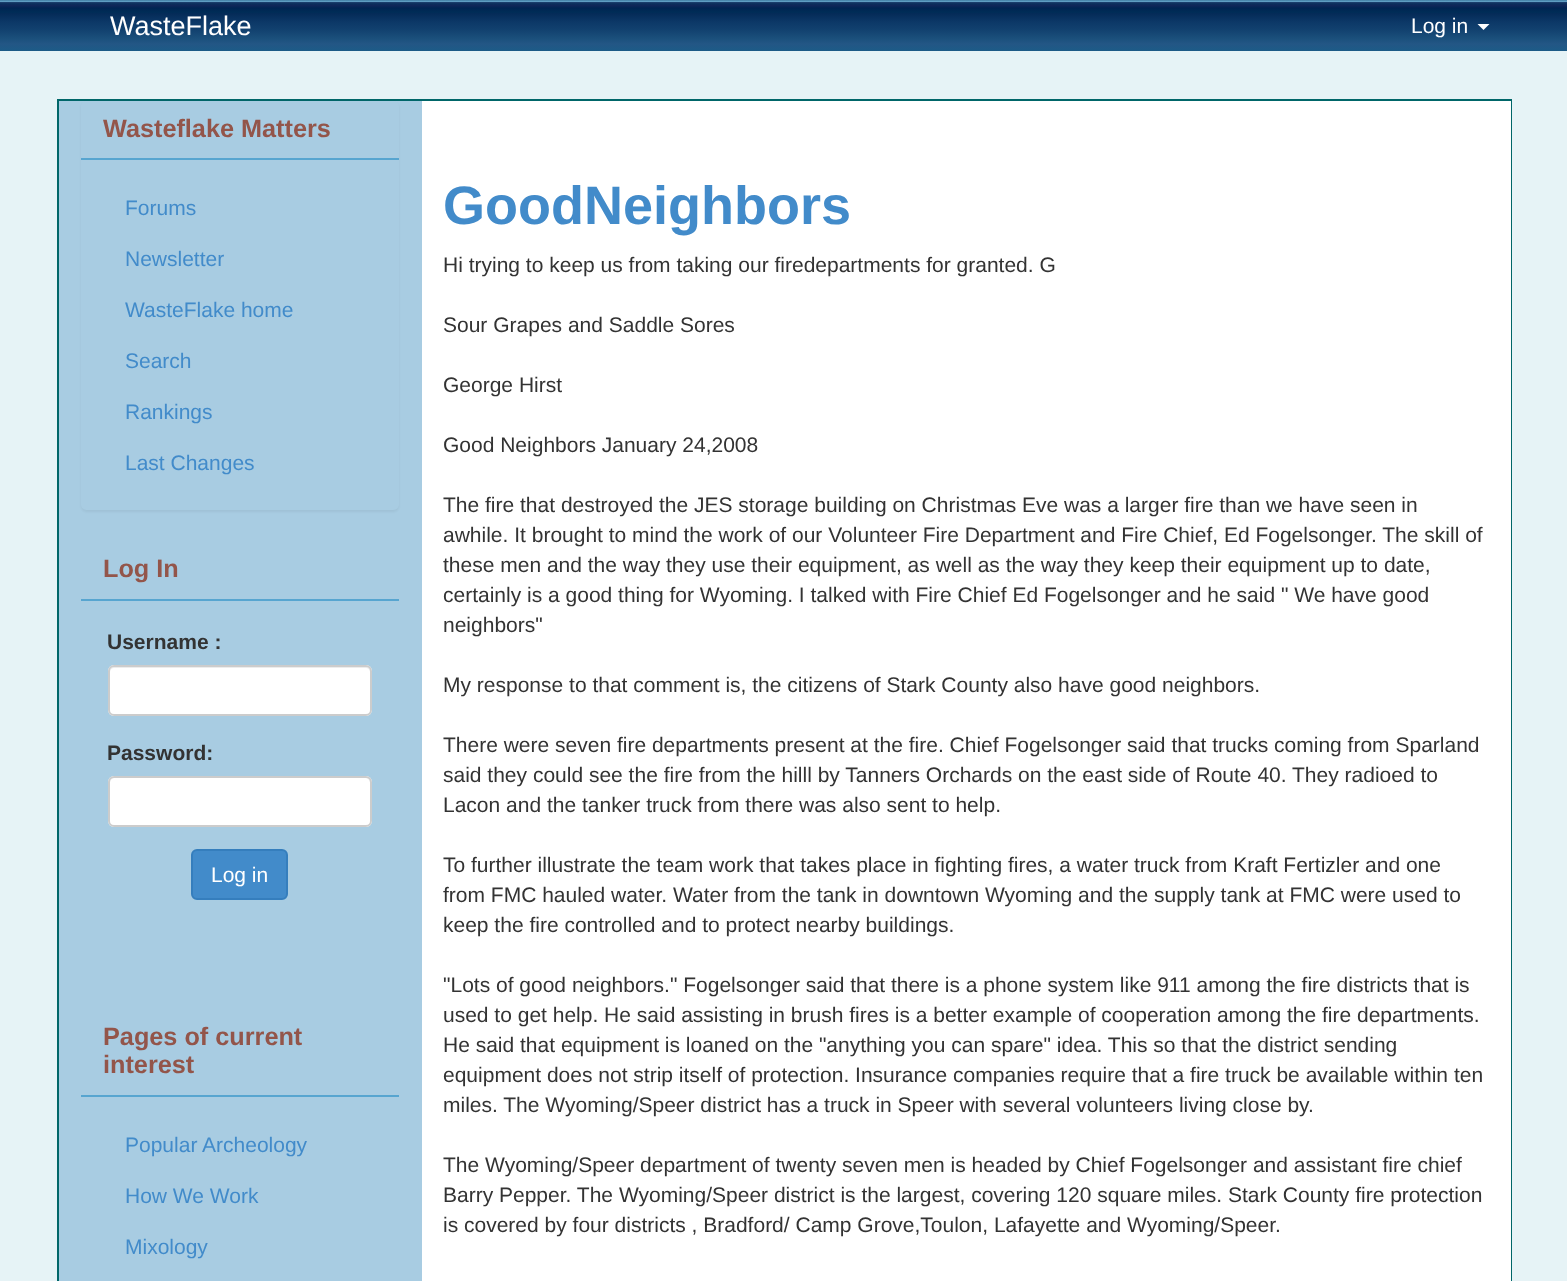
<svg xmlns="http://www.w3.org/2000/svg" width="1567" height="1281">
<defs>
<linearGradient id="g1" gradientUnits="userSpaceOnUse" x1="784" y1="0" x2="784" y2="51"><stop offset="0" stop-color="#3e7ca1"/><stop offset="0.03" stop-color="#609ec3"/><stop offset="0.05" stop-color="#163866"/><stop offset="0.08" stop-color="#0b2d5b"/><stop offset="0.11" stop-color="#0f2658"/><stop offset="0.16" stop-color="#002552"/><stop offset="0.24" stop-color="#002d57"/><stop offset="0.27" stop-color="#052b58"/><stop offset="0.43" stop-color="#0c3867"/><stop offset="0.57" stop-color="#11406e"/><stop offset="0.76" stop-color="#1b507c"/><stop offset="0.86" stop-color="#235685"/><stop offset="1" stop-color="#1c5b87"/></linearGradient>
<clipPath id="clip1"><path d="M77 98h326v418h-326zm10 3h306c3.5 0 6 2.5 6 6v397c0 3.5-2.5 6-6 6h-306c-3.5 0-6-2.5-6-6v-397c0-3.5 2.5-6 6-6z" clip-rule="evenodd"/></clipPath>
</defs>
<rect width="100%" height="100%" fill="#e6f3f6"/>
<rect width="1567" height="51" fill="url(#g1)"/>
<text x="110" y="35" style="font-family:Liberation Sans;font-size:27px;fill:#fff">WasteFlake</text>
<text x="1411" y="33" style="font-family:Liberation Sans;font-size:21px;fill:#fff">Log in</text>
<path d="M1477.5 24h12l-6 6z" fill="#fff"/>
<rect x="58" y="100" width="1453" height="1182" fill="none" stroke="#006669" stroke-width="2"/>
<rect x="59" y="101" width="363" height="1180" fill="#a8cce2"/>
<g clip-path="url(#clip1)">
<rect x="81" y="102" width="318" height="410" rx="6" fill="#0000000d" filter="blur(1px)"/>
</g>
<rect x="81" y="158" width="318" height="2" fill="#57a5d0"/>
<text x="103" y="137" style="font-family:Liberation Sans;font-size:25.25px;font-weight:bold;fill:#93554a">Wasteflake Matters</text>
<text x="125" y="215" style="font-family:Liberation Sans;font-size:21px;fill:#428bca">Forums</text>
<text x="125" y="266" style="font-family:Liberation Sans;font-size:21px;fill:#428bca">Newsletter</text>
<text x="125" y="317" style="font-family:Liberation Sans;font-size:21px;fill:#428bca">WasteFlake home</text>
<text x="125" y="368" style="font-family:Liberation Sans;font-size:21px;fill:#428bca">Search</text>
<text x="125" y="419" style="font-family:Liberation Sans;font-size:21px;fill:#428bca">Rankings</text>
<text x="125" y="470" style="font-family:Liberation Sans;font-size:21px;fill:#428bca">Last Changes</text>
<rect x="81" y="599" width="318" height="2" fill="#57a5d0"/>
<text x="103" y="577" style="font-family:Liberation Sans;font-size:25.25px;font-weight:bold;fill:#93554a">Log In</text>
<text x="107" y="649" style="font-family:Liberation Sans;font-size:21px;font-weight:bold;fill:#333">Username :</text>
<rect x="108" y="665" width="264" height="51" rx="6" fill="#fff"/>
<path d="M114 668h252c2 0 4 2 4 4v40c1-1 1-2 1-3v-38c0-3-2-5-5-5h-251c-3 0-5 2-5 5v1c0-2 2-4 4-4z" fill="#ececec"/>
<rect x="109" y="666" width="262" height="49" rx="5" fill="none" stroke="#ccc" stroke-width="2"/>
<text x="107" y="760" style="font-family:Liberation Sans;font-size:21px;font-weight:bold;fill:#333">Password:</text>
<rect x="108" y="776" width="264" height="51" rx="6" fill="#fff"/>
<path d="M114 778h252c2 0 4 3 4 5v40c1-1 1-2 1-3v-38c0-3-2-5-5-5h-251c-3 0-5 2-5 5v1c0-2 2-5 4-5z" fill="#ececec"/>
<rect x="109" y="777" width="262" height="49" rx="5" fill="none" stroke="#ccc" stroke-width="2"/>
<rect x="192" y="850" width="95" height="49" rx="5" fill="#428bca" stroke="#357ebd" stroke-width="2"/>
<text x="211" y="882" style="font-family:Liberation Sans;font-size:21px;fill:#fff">Log in</text>
<rect x="81" y="1095" width="318" height="2" fill="#57a5d0"/>
<text x="103" y="1045" style="font-family:Liberation Sans;font-size:25.25px;font-weight:bold;fill:#93554a">Pages of current</text>
<text x="103" y="1073" style="font-family:Liberation Sans;font-size:25.25px;font-weight:bold;fill:#93554a">interest</text>
<text x="125" y="1152" style="font-family:Liberation Sans;font-size:21px;fill:#428bca">Popular Archeology</text>
<text x="125" y="1203" style="font-family:Liberation Sans;font-size:21px;fill:#428bca">How We Work</text>
<text x="125" y="1254" style="font-family:Liberation Sans;font-size:21px;fill:#428bca">Mixology</text>
<rect x="422" y="101" width="1089" height="1180" fill="#fff"/>
<text x="443" y="224" style="font-family:Liberation Sans;font-size:54px;font-weight:bold;fill:#428bca">GoodNeighbors</text>
<text x="443" y="272" style="font-family:Liberation Sans;font-size:21px;fill:#333">Hi trying to keep us from taking our firedepartments for granted. G</text>
<text x="443" y="332" style="font-family:Liberation Sans;font-size:21px;fill:#333">Sour Grapes and Saddle Sores</text>
<text x="443" y="392" style="font-family:Liberation Sans;font-size:21px;fill:#333">George Hirst</text>
<text x="443" y="452" style="font-family:Liberation Sans;font-size:21px;fill:#333">Good Neighbors January 24,2008</text>
<text x="443" y="512" style="font-family:Liberation Sans;font-size:21px;fill:#333">The fire that destroyed the JES storage building on Christmas Eve was a larger fire than we have seen in</text>
<text x="443" y="542" style="font-family:Liberation Sans;font-size:21px;fill:#333">awhile. It brought to mind the work of our Volunteer Fire Department and Fire Chief, Ed Fogelsonger. The skill of</text>
<text x="443" y="572" style="font-family:Liberation Sans;font-size:21px;fill:#333">these men and the way they use their equipment, as well as the way they keep their equipment up to date,</text>
<text x="443" y="602" style="font-family:Liberation Sans;font-size:21px;fill:#333">certainly is a good thing for Wyoming. I talked with Fire Chief Ed Fogelsonger and he said " We have good</text>
<text x="443" y="632" style="font-family:Liberation Sans;font-size:21px;fill:#333">neighbors"</text>
<text x="443" y="692" style="font-family:Liberation Sans;font-size:21px;fill:#333">My response to that comment is, the citizens of Stark County also have good neighbors.</text>
<text x="443" y="752" style="font-family:Liberation Sans;font-size:21px;fill:#333">There were seven fire departments present at the fire. Chief Fogelsonger said that trucks coming from Sparland</text>
<text x="443" y="782" style="font-family:Liberation Sans;font-size:21px;fill:#333">said they could see the fire from the hilll by Tanners Orchards on the east side of Route 40. They radioed to</text>
<text x="443" y="812" style="font-family:Liberation Sans;font-size:21px;fill:#333">Lacon and the tanker truck from there was also sent to help.</text>
<text x="443" y="872" style="font-family:Liberation Sans;font-size:21px;fill:#333">To further illustrate the team work that takes place in fighting fires, a water truck from Kraft Fertizler and one</text>
<text x="443" y="902" style="font-family:Liberation Sans;font-size:21px;fill:#333">from FMC hauled water. Water from the tank in downtown Wyoming and the supply tank at FMC were used to</text>
<text x="443" y="932" style="font-family:Liberation Sans;font-size:21px;fill:#333">keep the fire controlled and to protect nearby buildings.</text>
<text x="443" y="992" style="font-family:Liberation Sans;font-size:21px;fill:#333">"Lots of good neighbors." Fogelsonger said that there is a phone system like 911 among the fire districts that is</text>
<text x="443" y="1022" style="font-family:Liberation Sans;font-size:21px;fill:#333">used to get help. He said assisting in brush fires is a better example of cooperation among the fire departments.</text>
<text x="443" y="1052" style="font-family:Liberation Sans;font-size:21px;fill:#333">He said that equipment is loaned on the "anything you can spare" idea. This so that the district sending</text>
<text x="443" y="1082" style="font-family:Liberation Sans;font-size:21px;fill:#333">equipment does not strip itself of protection. Insurance companies require that a fire truck be available within ten</text>
<text x="443" y="1112" style="font-family:Liberation Sans;font-size:21px;fill:#333">miles. The Wyoming/Speer district has a truck in Speer with several volunteers living close by.</text>
<text x="443" y="1172" style="font-family:Liberation Sans;font-size:21px;fill:#333">The Wyoming/Speer department of twenty seven men is headed by Chief Fogelsonger and assistant fire chief</text>
<text x="443" y="1202" style="font-family:Liberation Sans;font-size:21px;fill:#333">Barry Pepper. The Wyoming/Speer district is the largest, covering 120 square miles. Stark County fire protection</text>
<text x="443" y="1232" style="font-family:Liberation Sans;font-size:21px;fill:#333">is covered by four districts , Bradford/ Camp Grove,Toulon, Lafayette and Wyoming/Speer.</text>
</svg>
